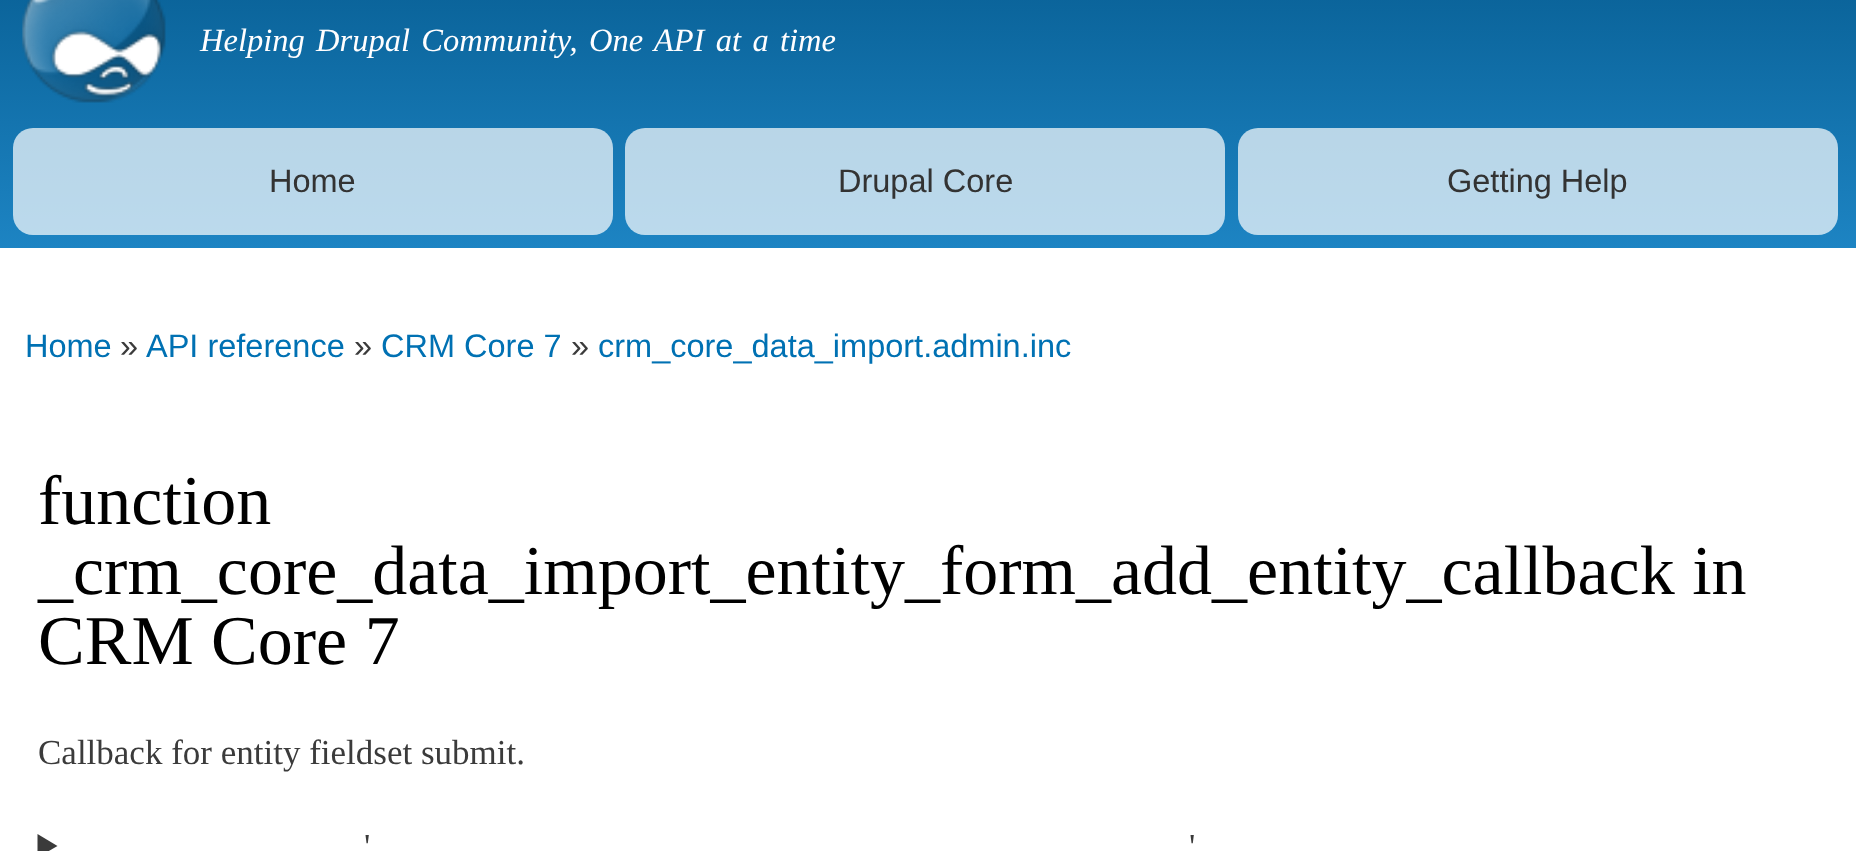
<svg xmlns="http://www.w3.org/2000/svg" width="1856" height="851">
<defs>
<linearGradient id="g1" gradientUnits="userSpaceOnUse" x1="929" y1="-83" x2="929" y2="248"><stop offset="0" stop-color="#055a8e"/><stop offset="1" stop-color="#1d84c3"/></linearGradient>
</defs>
<rect width="100%" height="100%" fill="#fff"/>
<rect width="1856" height="248" fill="url(#g1)"/>
<image x="22" y="0" width="144" height="103" href="media/1.png"/>
<text x="200" y="51" word-spacing="3.25" style="font-family:Liberation Serif;font-size:32.5px;font-style:italic;fill:#fffeff">Helping Drupal Community, One API at a time</text>
<rect x="13" y="128" width="600" height="107" rx="20" fill="#ffffffb3"/>
<text x="269" y="192" style="font-family:Liberation Sans;font-size:32.5px;fill:#333">Home</text>
<rect x="625" y="128" width="600" height="107" rx="20" fill="#ffffffb3"/>
<text x="838" y="192" style="font-family:Liberation Sans;font-size:32.5px;fill:#333">Drupal Core</text>
<rect x="1238" y="128" width="600" height="107" rx="20" fill="#ffffffb3"/>
<text x="1447" y="192" style="font-family:Liberation Sans;font-size:32.5px;fill:#333">Getting Help</text>
<text x="25" y="357" style="font-family:Liberation Sans;font-size:32.5px;fill:#0071b3">Home</text>
<text x="120" y="357" style="font-family:Liberation Sans;font-size:32.5px;fill:#3b3b3b">»</text>
<text x="146" y="357" style="font-family:Liberation Sans;font-size:32.5px;fill:#0071b3">API reference</text>
<text x="354" y="357" style="font-family:Liberation Sans;font-size:32.5px;fill:#3b3b3b">»</text>
<text x="381" y="357" style="font-family:Liberation Sans;font-size:32.5px;fill:#0071b3">CRM Core 7</text>
<text x="571" y="357" style="font-family:Liberation Sans;font-size:32.5px;fill:#3b3b3b">»</text>
<text x="598" y="357" style="font-family:Liberation Sans;font-size:32.5px;fill:#0071b3">crm_core_data_import.admin.inc</text>
<text x="38" y="524" style="font-family:Liberation Serif;font-size:70px;fill:#000">function</text>
<text x="38" y="594" style="font-family:Liberation Serif;font-size:70px;fill:#000">_crm_core_data_import_entity_form_add_entity_callback in</text>
<text x="38" y="664" style="font-family:Liberation Serif;font-size:70px;fill:#000">CRM Core 7</text>
<text x="38" y="764" style="font-family:Liberation Serif;font-size:35px;fill:#3b3b3b">Callback for entity fieldset submit.</text>
<path d="M37.5 834l20 12l-20 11.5z" fill="#3b3b3b"/>
<text x="364" y="858" style="font-family:Liberation Serif;font-size:35px;fill:#3b3b3b">'</text>
<text x="1189" y="858" style="font-family:Liberation Serif;font-size:35px;fill:#3b3b3b">'</text>
</svg>
